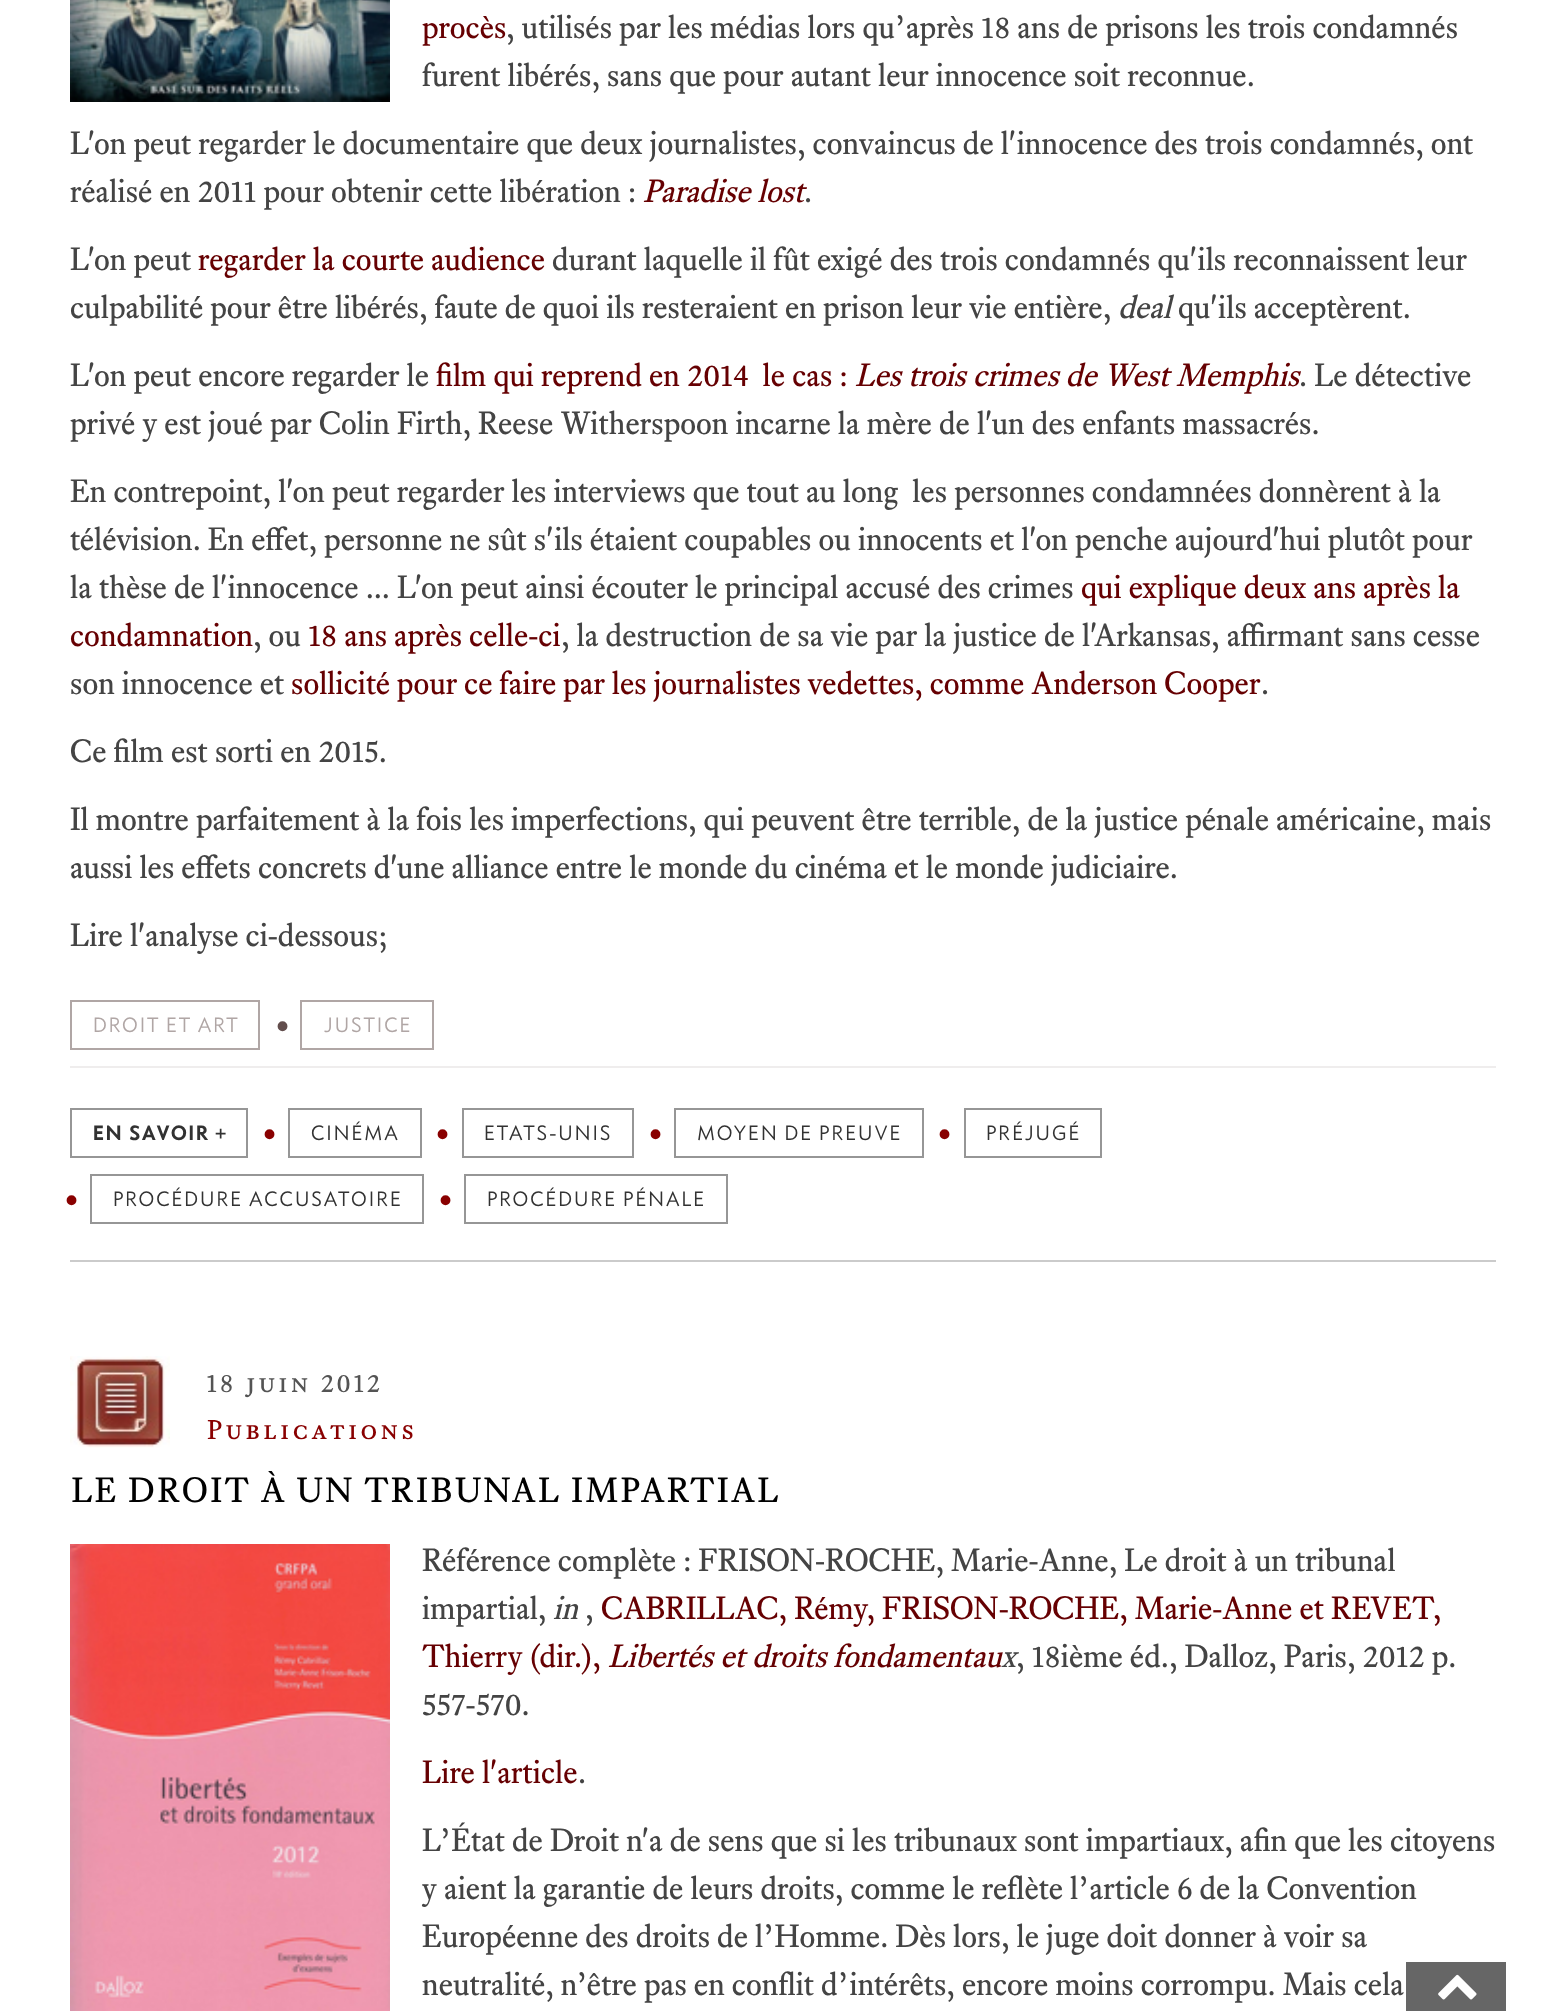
<svg xmlns="http://www.w3.org/2000/svg" width="1566" height="2011">
<rect width="100%" height="100%" fill="#fff"/>
<image x="70" y="0" width="320" height="102" href="media/1.png"/>
<text x="422" y="38" style="font-family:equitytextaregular;font-size:32px;fill:#660002">procès</text>
<text x="506" y="38" style="font-family:equitytextaregular;font-size:32px;fill:#444">, utilisés par les médias lors qu’après 18 ans de prisons les trois condamnés</text>
<text x="422" y="86" style="font-family:equitytextaregular;font-size:32px;fill:#444">furent libérés, sans que pour autant leur innocence soit reconnue.</text>
<text x="70" y="154" style="font-family:equitytextaregular;font-size:32px;fill:#444">L'on peut regarder le documentaire que deux journalistes, convaincus de l'innocence des trois condamnés, ont</text>
<text x="70" y="202" style="font-family:equitytextaregular;font-size:32px;fill:#444">réalisé en 2011 pour obtenir cette libération :</text>
<text x="643" y="202" style="font-family:equitytextaregular;font-size:32px;font-style:italic;fill:#660002">Paradise lost</text>
<text x="804" y="202" style="font-family:equitytextaregular;font-size:32px;fill:#444">.</text>
<text x="70" y="270" style="font-family:equitytextaregular;font-size:32px;fill:#444">L'on peut</text>
<text x="198" y="270" style="font-family:equitytextaregular;font-size:32px;fill:#660002">regarder la courte audience</text>
<text x="552" y="270" style="font-family:equitytextaregular;font-size:32px;fill:#444">durant laquelle il fût exigé des trois condamnés qu'ils reconnaissent leur</text>
<text x="70" y="318" style="font-family:equitytextaregular;font-size:32px;fill:#444">culpabilité pour être libérés, faute de quoi ils resteraient en prison leur vie entière,</text>
<text x="1118" y="318" style="font-family:equitytextaregular;font-size:32px;font-style:italic;fill:#444">deal</text>
<text x="1178" y="318" style="font-family:equitytextaregular;font-size:32px;fill:#444">qu'ils acceptèrent.</text>
<text x="70" y="386" style="font-family:equitytextaregular;font-size:32px;fill:#444">L'on peut encore regarder le</text>
<text x="436" y="386" style="font-family:equitytextaregular;font-size:32px;fill:#660002" xml:space="preserve">film qui reprend en 2014  le cas :</text>
<text x="855" y="386" style="font-family:equitytextaregular;font-size:32px;font-style:italic;fill:#660002">Les trois crimes de West Memphis</text>
<text x="1299" y="386" style="font-family:equitytextaregular;font-size:32px;fill:#444">. Le détective</text>
<text x="70" y="434" style="font-family:equitytextaregular;font-size:32px;fill:#444">privé y est joué par Colin Firth, Reese Witherspoon incarne la mère de l'un des enfants massacrés.</text>
<text x="70" y="502" style="font-family:equitytextaregular;font-size:32px;fill:#444" xml:space="preserve">En contrepoint, l'on peut regarder les interviews que tout au long  les personnes condamnées donnèrent à la</text>
<text x="70" y="550" style="font-family:equitytextaregular;font-size:32px;fill:#444">télévision. En effet, personne ne sût s'ils étaient coupables ou innocents et l'on penche aujourd'hui plutôt pour</text>
<text x="70" y="598" style="font-family:equitytextaregular;font-size:32px;fill:#444">la thèse de l'innocence ... L'on peut ainsi écouter le principal accusé des crimes</text>
<text x="1081" y="598" style="font-family:equitytextaregular;font-size:32px;fill:#660002">qui explique deux ans après la</text>
<text x="70" y="646" style="font-family:equitytextaregular;font-size:32px;fill:#660002">condamnation</text>
<text x="253" y="646" style="font-family:equitytextaregular;font-size:32px;fill:#444">, ou</text>
<text x="308" y="646" style="font-family:equitytextaregular;font-size:32px;fill:#660002">18 ans après celle-ci</text>
<text x="561" y="646" style="font-family:equitytextaregular;font-size:32px;fill:#444">, la destruction de sa vie par la justice de l'Arkansas, affirmant sans cesse</text>
<text x="70" y="694" style="font-family:equitytextaregular;font-size:32px;fill:#444">son innocence et</text>
<text x="291" y="694" word-spacing="-0.25" style="font-family:equitytextaregular;font-size:32px;fill:#660002">sollicité pour ce faire par les journalistes vedettes, comme Anderson Cooper</text>
<text x="1261" y="694" style="font-family:equitytextaregular;font-size:32px;fill:#444">.</text>
<text x="70" y="762" style="font-family:equitytextaregular;font-size:32px;fill:#444">Ce film est sorti en 2015.</text>
<text x="70" y="830" style="font-family:equitytextaregular;font-size:32px;fill:#444">Il montre parfaitement à la fois les imperfections, qui peuvent être terrible, de la justice pénale américaine, mais</text>
<text x="70" y="878" style="font-family:equitytextaregular;font-size:32px;fill:#444">aussi les effets concrets d'une alliance entre le monde du cinéma et le monde judiciaire.</text>
<text x="70" y="946" style="font-family:equitytextaregular;font-size:32px;fill:#444">Lire l'analyse ci-dessous;</text>
<rect x="71" y="1001" width="188" height="48" fill="none" stroke="#b0a6a5" stroke-width="2"/>
<text x="92" y="1032" style="font-family:'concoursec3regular';font-size:21.3px;font-weight:300;fill:#b0a6a5">DROIT ET ART</text>
<text x="271" y="1044" style="font-family:'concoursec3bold';font-size:64px;font-weight:600;fill:#624d4c">·</text>
<rect x="301" y="1001" width="132" height="48" fill="none" stroke="#b0a6a5" stroke-width="2"/>
<text x="323" y="1032" style="font-family:'concoursec3regular';font-size:21.3px;font-weight:300;fill:#b0a6a5">JUSTICE</text>
<rect x="70" y="1066" width="1426" height="2" fill="#efeded"/>
<rect x="71" y="1109" width="176" height="48" fill="none" stroke="#969696" stroke-width="2"/>
<text x="92" y="1140" style="font-family:'concoursec3bold';font-size:21.3px;font-weight:600;fill:#323232">EN SAVOIR +</text>
<text x="258" y="1152" style="font-family:'concoursec3bold';font-size:64px;font-weight:600;fill:#890000">·</text>
<rect x="289" y="1109" width="132" height="48" fill="none" stroke="#969696" stroke-width="2"/>
<text x="310" y="1140" style="font-family:'concoursec3regular';font-size:21.3px;font-weight:300;fill:#323232">CINÉMA</text>
<text x="431" y="1152" style="font-family:'concoursec3bold';font-size:64px;font-weight:600;fill:#890000">·</text>
<rect x="463" y="1109" width="170" height="48" fill="none" stroke="#969696" stroke-width="2"/>
<text x="483" y="1140" style="font-family:'concoursec3regular';font-size:21.3px;font-weight:300;fill:#323232">ETATS-UNIS</text>
<text x="644" y="1152" style="font-family:'concoursec3bold';font-size:64px;font-weight:600;fill:#890000">·</text>
<rect x="675" y="1109" width="248" height="48" fill="none" stroke="#969696" stroke-width="2"/>
<text x="696" y="1140" style="font-family:'concoursec3regular';font-size:21.3px;font-weight:300;fill:#323232">MOYEN DE PREUVE</text>
<text x="933" y="1152" style="font-family:'concoursec3bold';font-size:64px;font-weight:600;fill:#890000">·</text>
<rect x="965" y="1109" width="136" height="48" fill="none" stroke="#969696" stroke-width="2"/>
<text x="985" y="1140" style="font-family:'concoursec3regular';font-size:21.3px;font-weight:300;fill:#323232">PRÉJUGÉ</text>
<text x="60" y="1218" style="font-family:'concoursec3bold';font-size:64px;font-weight:600;fill:#890000">·</text>
<rect x="91" y="1175" width="332" height="48" fill="none" stroke="#969696" stroke-width="2"/>
<text x="112" y="1206" style="font-family:'concoursec3regular';font-size:21.3px;font-weight:300;fill:#323232">PROCÉDURE ACCUSATOIRE</text>
<text x="434" y="1218" style="font-family:'concoursec3bold';font-size:64px;font-weight:600;fill:#890000">·</text>
<rect x="465" y="1175" width="262" height="48" fill="none" stroke="#969696" stroke-width="2"/>
<text x="486" y="1206" style="font-family:'concoursec3regular';font-size:21.3px;font-weight:300;fill:#323232">PROCÉDURE PÉNALE</text>
<rect x="70" y="1260" width="1426" height="2" fill="#cbcbcb"/>
<image x="70" y="1356" width="100" height="92" href="media/2.png"/>
<text x="206" y="1392" style="font-family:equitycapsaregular;font-size:26.75px;letter-spacing:2px;fill:#545454">18 juin 2012</text>
<text x="206" y="1439" style="font-family:equitycapsaregular;font-size:26.75px;letter-spacing:2px;fill:#890000">Publications</text>
<text x="70" y="1502" style="font-family:equitycapsaregular;font-size:34.7px;fill:#000">LE DROIT À UN TRIBUNAL IMPARTIAL</text>
<image x="70" y="1544" width="320" height="467" href="media/3.png"/>
<text x="422" y="1571" style="font-family:equitytextaregular;font-size:32px;fill:#444">Référence complète : FRISON-ROCHE, Marie-Anne, Le droit à un tribunal</text>
<text x="422" y="1619" style="font-family:equitytextaregular;font-size:32px;fill:#444">impartial,</text>
<text x="553" y="1619" style="font-family:equitytextaregular;font-size:32px;font-style:italic;fill:#444">in</text>
<text x="585" y="1619" style="font-family:equitytextaregular;font-size:32px;fill:#444">,</text>
<text x="601" y="1619" style="font-family:equitytextaregular;font-size:32px;fill:#660002">CABRILLAC, Rémy, FRISON-ROCHE, Marie-Anne et REVET,</text>
<text x="422" y="1667" style="font-family:equitytextaregular;font-size:32px;fill:#660002">Thierry (dir.),</text>
<text x="608" y="1667" style="font-family:equitytextaregular;font-size:32px;font-style:italic;fill:#660002">Libertés et droits fondamentau</text>
<text x="1001" y="1667" style="font-family:equitytextaregular;font-size:32px;font-style:italic;fill:#444">x</text>
<text x="1016" y="1667" style="font-family:equitytextaregular;font-size:32px;fill:#444">, 18ième éd., Dalloz, Paris, 2012 p.</text>
<text x="422" y="1715" style="font-family:equitytextaregular;font-size:32px;fill:#444">557-570.</text>
<text x="422" y="1783" style="font-family:equitytextaregular;font-size:32px;fill:#660002">Lire l'article</text>
<text x="578" y="1783" style="font-family:equitytextaregular;font-size:32px;fill:#444">.</text>
<text x="422" y="1851" style="font-family:equitytextaregular;font-size:32px;fill:#444">L’État de Droit n'a de sens que si les tribunaux sont impartiaux, afin que les citoyens</text>
<text x="422" y="1899" style="font-family:equitytextaregular;font-size:32px;fill:#444">y aient la garantie de leurs droits, comme le reflète l’article 6 de la Convention</text>
<text x="422" y="1947" style="font-family:equitytextaregular;font-size:32px;fill:#444">Européenne des droits de l’Homme. Dès lors, le juge doit donner à voir sa</text>
<text x="422" y="1995" style="font-family:equitytextaregular;font-size:32px;fill:#444">neutralité, n’être pas en conflit d’intérêts, encore moins corrompu. Mais cela</text>
<rect x="1406" y="1962" width="100" height="49" fill="#666"/>
<image x="1438" y="1974" width="39" height="26" href="media/4.png"/>
</svg>
